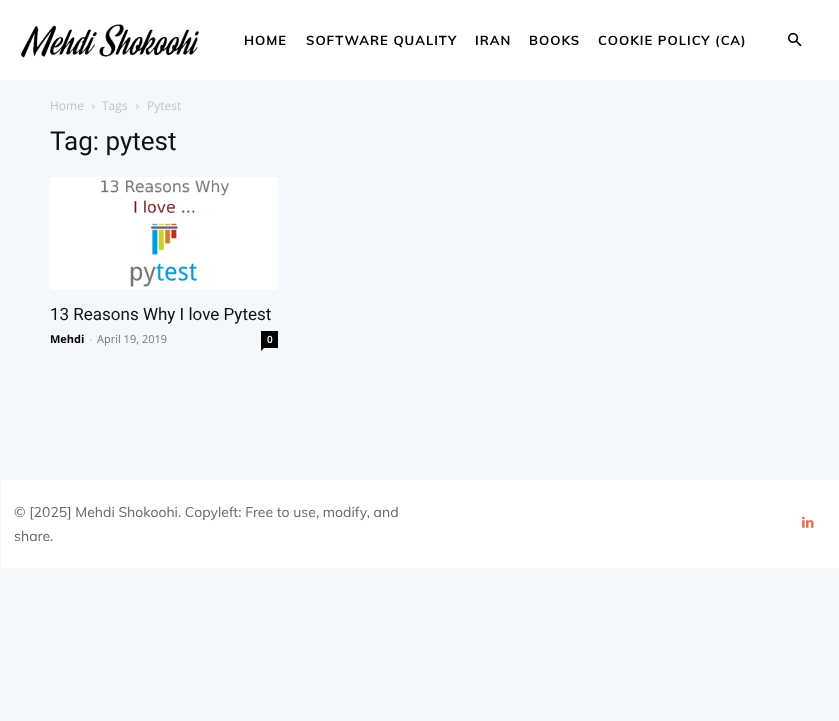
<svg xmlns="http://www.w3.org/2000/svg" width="839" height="721">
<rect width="100%" height="100%" fill="#f4f7fc"/>
<rect width="839" height="80" fill="#fff"/>
<image x="21" y="24" width="178" height="34" href="media/1.png"/>
<text x="244" y="45" style="font-family:Muli;font-size:13px;font-weight:bold;letter-spacing:1px;fill:#000">HOME</text>
<text x="306" y="45" style="font-family:Muli;font-size:13px;font-weight:bold;letter-spacing:1px;fill:#000">SOFTWARE QUALITY</text>
<text x="475" y="45" style="font-family:Muli;font-size:13px;font-weight:bold;letter-spacing:1px;fill:#000">IRAN</text>
<text x="529" y="45" style="font-family:Muli;font-size:13px;font-weight:bold;letter-spacing:1px;fill:#000">BOOKS</text>
<text x="598" y="45" style="font-family:Muli;font-size:13px;font-weight:bold;letter-spacing:1px;fill:#000">COOKIE POLICY (CA)</text>
<image x="788" y="32" width="14" height="15" href="media/2.png"/>
<text x="50" y="110" style="font-family:Open Sans;font-size:12px;fill:#c3c3c3">Home</text>
<image x="92" y="104" width="3" height="5" href="media/3.png"/>
<text x="102" y="110" style="font-family:Open Sans;font-size:12px;fill:#c3c3c3">Tags</text>
<image x="136" y="104" width="3" height="5" href="media/3.png"/>
<text x="147" y="110" style="font-family:Open Sans;font-size:12px;fill:#c3c3c3">Pytest</text>
<text x="50" y="150" style="font-family:Roboto;font-size:26px;fill:#111">Tag: pytest</text>
<image x="50" y="177" width="228" height="113" href="media/4.png"/>
<text x="50" y="320" style="font-family:Roboto;font-size:17px;fill:#111">13 Reasons Why I love Pytest</text>
<text x="50" y="343" style="font-family:Open Sans;font-size:11px;font-weight:bold;fill:#000">Mehdi</text>
<text x="89" y="343" style="font-family:Open Sans;font-size:11px;fill:#ccc">-</text>
<text x="97" y="343" style="font-family:Open Sans;font-size:11px;fill:#767676">April 19, 2019</text>
<rect x="261" y="331" width="17" height="17" fill="#000"/>
<text x="267" y="343" style="font-family:Open Sans;font-size:10px;font-weight:600;fill:#fff">0</text>
<path d="M261 348h3l-3 3z" fill="#000"/>
<rect x="1" y="480" width="838" height="88" fill="#fff"/>
<text x="14" y="517" style="font-family:Muli;font-size:14px;fill:#666">© [2025] Mehdi Shokoohi. Copyleft: Free to use, modify, and</text>
<text x="14" y="541" style="font-family:Muli;font-size:14px;fill:#666">share.</text>
<image x="802" y="516" width="12" height="12" href="media/5.png"/>
</svg>
